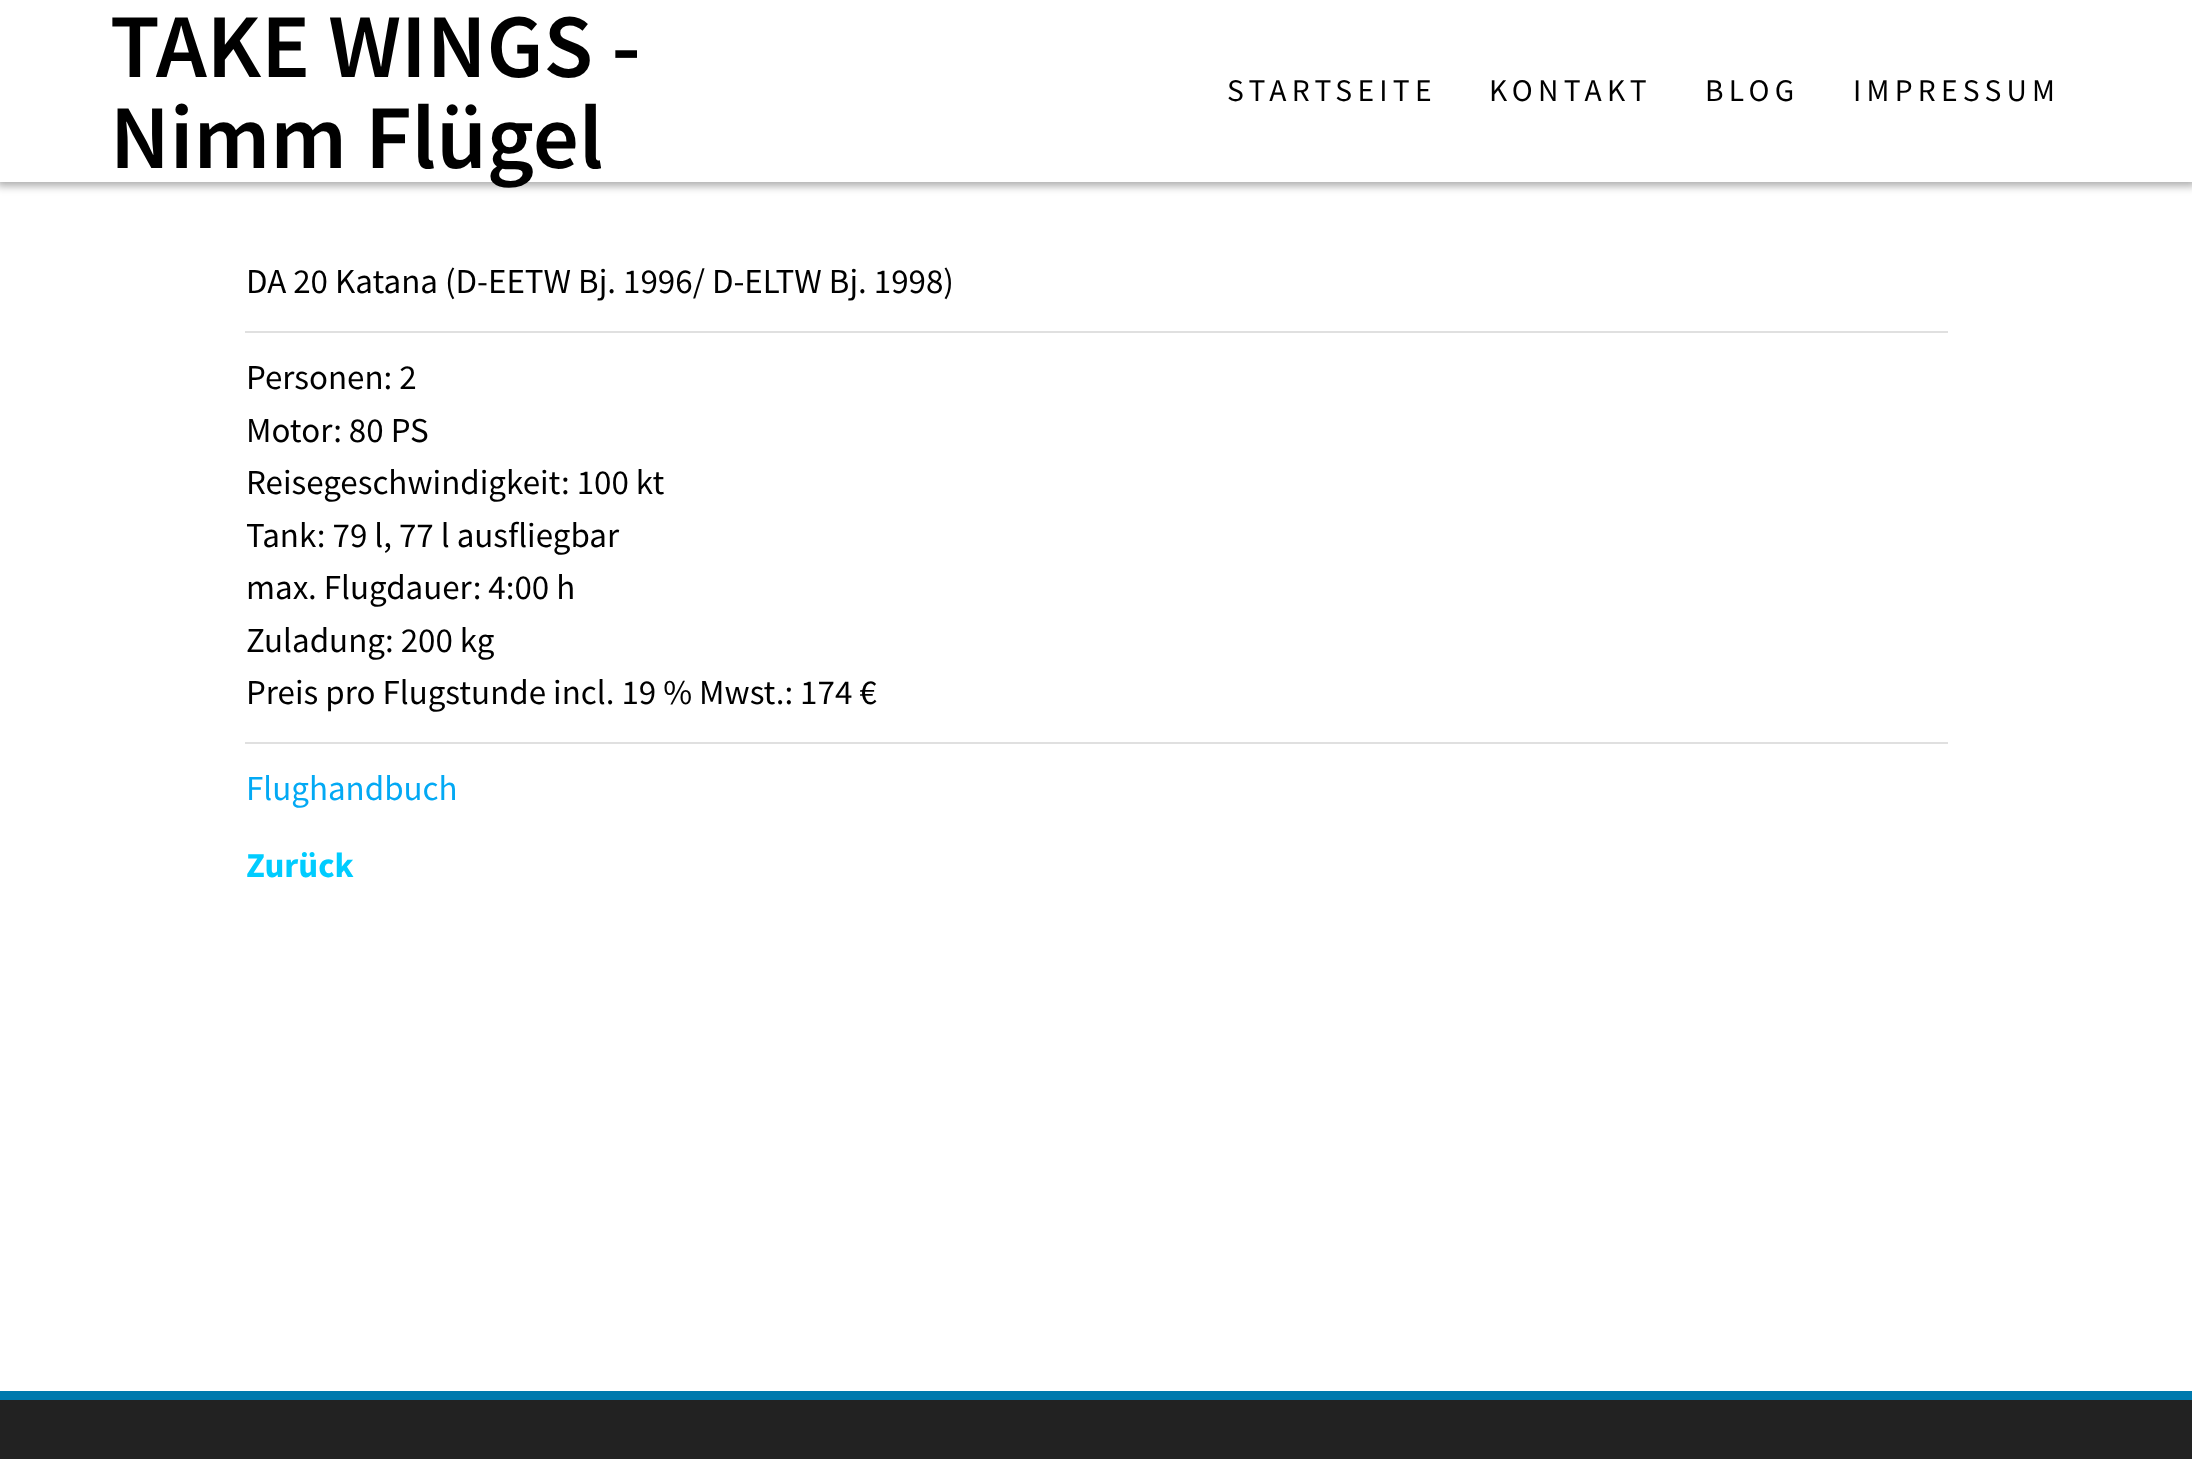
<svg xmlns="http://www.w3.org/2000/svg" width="2192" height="1459">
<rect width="100%" height="100%" fill="#fff"/>
<rect x="-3" y="-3" width="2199" height="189" fill="#00000054" filter="blur(4.5px)"/>
<rect width="2192" height="182" fill="#fff"/>
<text x="110" y="77" style="font-family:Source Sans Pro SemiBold;font-size:91px;font-weight:600;fill:#000">TAKE WINGS -</text>
<text x="110" y="168" style="font-family:Source Sans Pro SemiBold;font-size:91px;font-weight:600;fill:#000">Nimm Flügel</text>
<text x="1227" y="101" style="font-family:Source Sans Pro;font-size:31.5px;letter-spacing:5.25px;fill:#000">STARTSEITE</text>
<text x="1489" y="101" style="font-family:Source Sans Pro;font-size:31.5px;letter-spacing:5.25px;fill:#000">KONTAKT</text>
<text x="1705" y="101" style="font-family:Source Sans Pro;font-size:31.5px;letter-spacing:5.25px;fill:#000">BLOG</text>
<text x="1853" y="101" style="font-family:Source Sans Pro;font-size:31.5px;letter-spacing:5.25px;fill:#000">IMPRESSUM</text>
<text x="246" y="293" style="font-family:Source Sans Pro;font-size:35px;fill:#000">DA 20 Katana (D-EETW Bj. 1996/ D-ELTW Bj. 1998)</text>
<rect x="245" y="331" width="1703" height="2" fill="#e0e0e0"/>
<text x="246" y="389" style="font-family:Source Sans Pro;font-size:35px;fill:#000">Personen: 2</text>
<text x="246" y="442" style="font-family:Source Sans Pro;font-size:35px;fill:#000">Motor: 80 PS</text>
<text x="246" y="494" style="font-family:Source Sans Pro;font-size:35px;fill:#000">Reisegeschwindigkeit: 100 kt</text>
<text x="246" y="547" style="font-family:Source Sans Pro;font-size:35px;fill:#000">Tank: 79 l, 77 l ausfliegbar</text>
<text x="246" y="599" style="font-family:Source Sans Pro;font-size:35px;fill:#000">max. Flugdauer: 4:00 h</text>
<text x="246" y="652" style="font-family:Source Sans Pro;font-size:35px;fill:#000">Zuladung: 200 kg</text>
<text x="246" y="704" style="font-family:Source Sans Pro;font-size:35px;fill:#000">Preis pro Flugstunde incl. 19 % Mwst.: 174 €</text>
<rect x="245" y="742" width="1703" height="2" fill="#e0e0e0"/>
<text x="246" y="800" style="font-family:Source Sans Pro;font-size:35px;fill:#03a9f4">Flughandbuch</text>
<text x="246" y="877" style="font-family:Source Sans Pro;font-size:35px;font-weight:bold;fill:#0cf">Zurück</text>
<rect y="1400" width="2192" height="59" fill="#222"/>
<rect y="1391" width="2192" height="9" fill="#0079ad"/>
</svg>
